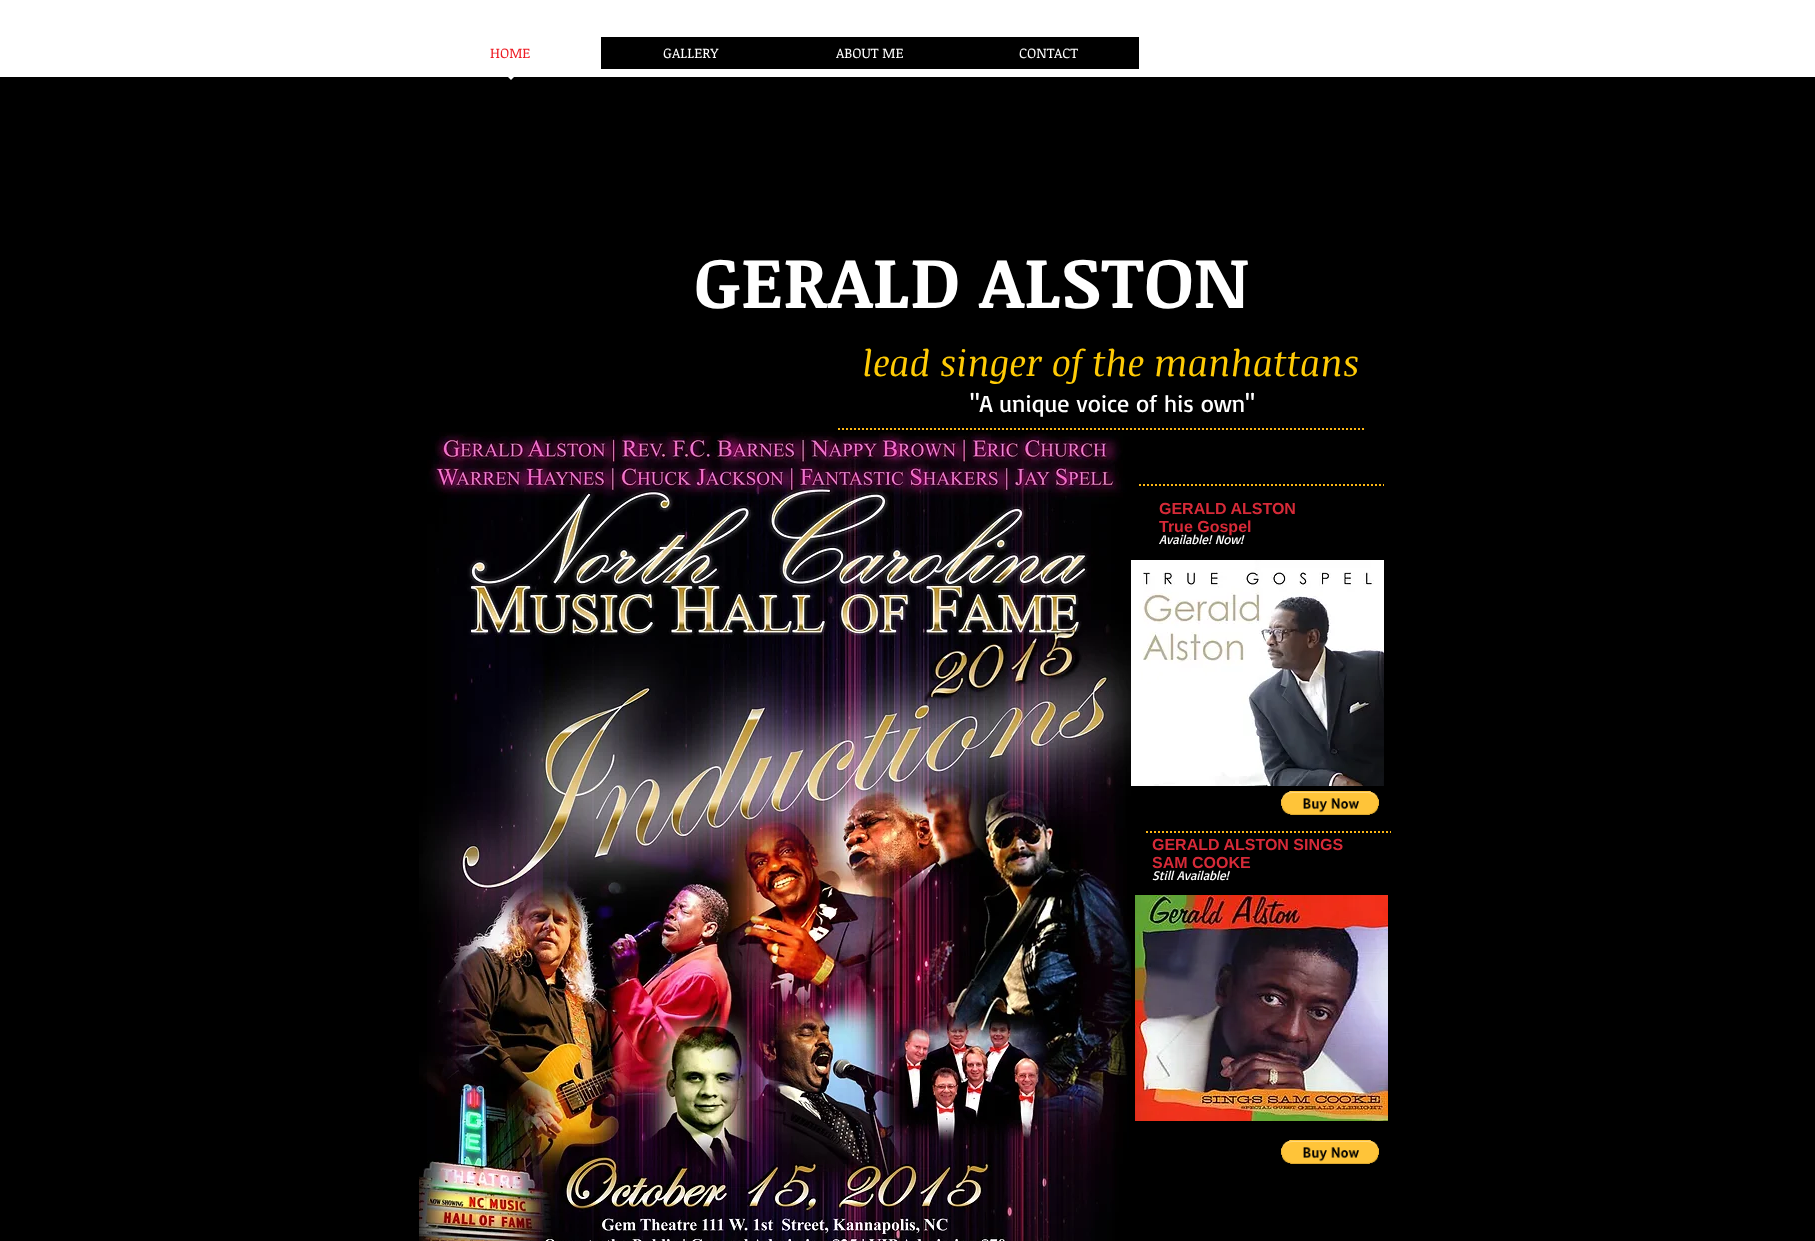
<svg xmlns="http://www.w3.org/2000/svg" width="1815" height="1241">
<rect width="100%" height="100%" fill="#000"/>
<rect width="1815" height="77" fill="#fff"/>
<rect x="601" y="37" width="538" height="32" fill="#000"/>
<text x="490" y="58" style="font-family:Noticia Text;font-size:14px;fill:#ed1c24">HOME</text>
<path d="M500 69h22l-11 11z" fill="#fff"/>
<text x="663" y="58" style="font-family:Noticia Text;font-size:14px;fill:#fff">GALLERY</text>
<text x="836" y="58" style="font-family:Noticia Text;font-size:14px;fill:#fff">ABOUT ME</text>
<text x="1019" y="58" style="font-family:Noticia Text;font-size:14px;fill:#fff">CONTACT</text>
<text x="694" y="308" style="font-family:Noticia Text;font-size:72px;font-weight:bold;fill:#fff">GERALD ALSTON</text>
<text x="862" y="376" style="font-family:Noticia Text;font-size:36px;font-style:italic;fill:#ffcb05">lead singer of the manhattans</text>
<text x="970" y="412" style="font-family:Basic;font-size:24px;fill:#fff">"A unique voice of his own"</text>
<path d="M838 429h527" fill="none" stroke="#fcb614" stroke-width="2" stroke-dasharray="2 2"/>
<image x="419" y="432" width="712" height="809" href="media/1.png"/>
<path d="M1139 485h245" fill="none" stroke="#fcb614" stroke-width="2" stroke-dasharray="2 2"/>
<text x="1159" y="514" style="font-family:Liberation Sans;font-size:16px;font-weight:bold;fill:#d62a38">GERALD ALSTON</text>
<text x="1159" y="532" style="font-family:Liberation Sans;font-size:16px;font-weight:bold;fill:#d62a38">True Gospel</text>
<text x="1159" y="544" style="font-family:Basic;font-size:13px;font-style:italic;fill:#fff">Available! Now!</text>
<image x="1131" y="560" width="253" height="226" href="media/2.png"/>
<image x="1281" y="791" width="98" height="24" href="media/3.png"/>
<path d="M1146 832h245" fill="none" stroke="#fcb614" stroke-width="2" stroke-dasharray="2 2"/>
<text x="1152" y="850" style="font-family:Liberation Sans;font-size:16px;font-weight:bold;fill:#d62a38">GERALD ALSTON SINGS</text>
<text x="1152" y="868" style="font-family:Liberation Sans;font-size:16px;font-weight:bold;fill:#d62a38">SAM COOKE</text>
<text x="1152" y="880" style="font-family:Basic;font-size:13px;font-style:italic;fill:#fff">Still Available!</text>
<image x="1135" y="895" width="253" height="226" href="media/4.png"/>
<image x="1281" y="1140" width="98" height="24" href="media/3.png"/>
</svg>
